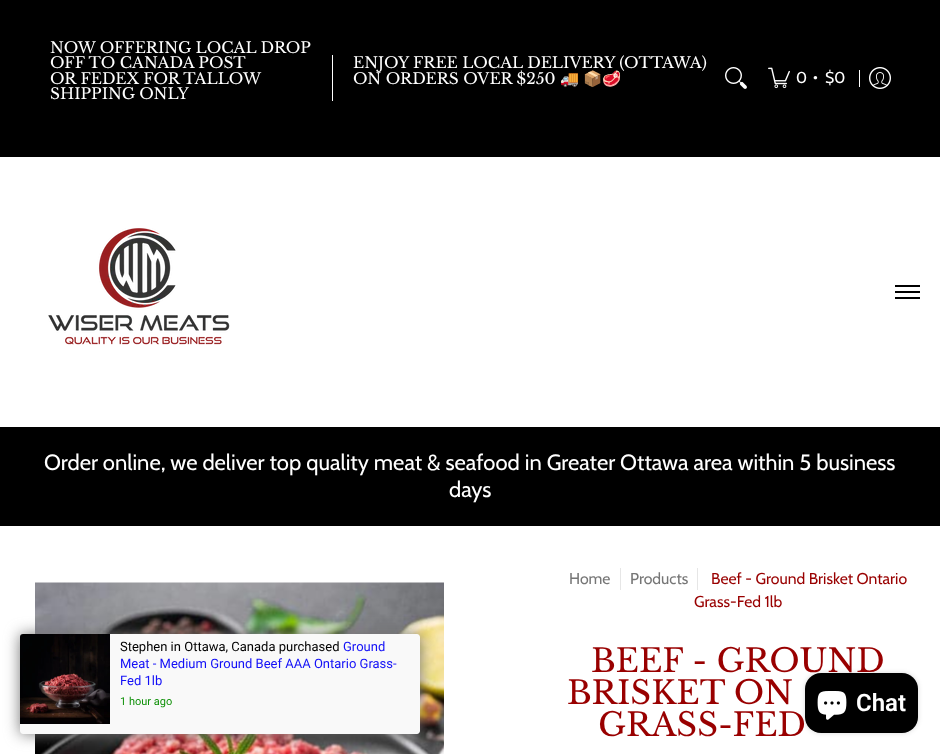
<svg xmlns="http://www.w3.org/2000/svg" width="940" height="754">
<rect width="100%" height="100%" fill="#fff"/>
<rect width="940" height="157" fill="#000"/>
<text x="50" y="53" style="font-family:Libre Baskerville;font-size:15.4px;fill:#fff">NOW OFFERING LOCAL DROP</text>
<text x="50" y="68" style="font-family:Libre Baskerville;font-size:15.4px;fill:#fff">OFF TO CANADA POST</text>
<text x="50" y="84" style="font-family:Libre Baskerville;font-size:15.4px;fill:#fff">OR FEDEX FOR TALLOW</text>
<text x="50" y="99" style="font-family:Libre Baskerville;font-size:15.4px;fill:#fff">SHIPPING ONLY</text>
<rect x="332" y="55" width="1" height="46" fill="#fff"/>
<text x="353" y="68" style="font-family:Libre Baskerville;font-size:15.4px;fill:#fff">ENJOY FREE LOCAL DELIVERY (OTTAWA)</text>
<text x="353" y="84" style="font-family:Libre Baskerville;font-size:15.4px;fill:#fff">ON ORDERS OVER $250</text>
<text x="560" y="84" style="font-family:Noto Color Emoji;font-size:15.4px;fill:#fff">🚚</text>
<text x="583" y="84" style="font-family:Noto Color Emoji;font-size:15.4px;fill:#fff">📦🥩</text>
<image x="725" y="67" width="22" height="22" href="media/1.png"/>
<image x="768" y="67" width="22" height="22" href="media/2.png"/>
<text x="796" y="83" style="font-family:Cabin;font-size:15.75px;fill:#fff">0</text>
<text x="813" y="82" style="font-family:Cabin;font-size:15.75px;fill:#fff">•</text>
<text x="825" y="83" style="font-family:Cabin;font-size:15.75px;fill:#fff">$0</text>
<rect x="859" y="70" width="1" height="17" fill="#fff"/>
<image x="869" y="67" width="22" height="22" href="media/3.png"/>
<image x="48" y="228" width="182" height="117" href="media/4.png"/>
<rect x="895" y="285" width="25" height="2" fill="#000"/>
<rect x="895" y="297" width="25" height="2" fill="#000"/>
<rect x="895" y="291" width="25" height="2" fill="#000"/>
<rect y="427" width="940" height="99" fill="#000"/>
<text x="44" y="470" style="font-family:Cabin;font-size:22px;fill:#fff">Order online, we deliver top quality meat &amp; seafood in Greater Ottawa area within 5 business</text>
<text x="449" y="497" style="font-family:Cabin;font-size:22px;fill:#fff">days</text>
<image x="35" y="582" width="409" height="172" href="media/6.png"/>
<rect x="20" y="634" width="400" height="100" rx="3" fill="#777" filter="blur(7.5px)"/>
<path d="M23 634h87v100h-87c-1.5 0-3-1.5-3-3v-94c0-1.5 1.5-3 3-3z" fill="#f9f9f9"/>
<image x="20" y="634" width="90" height="90" href="media/5.png"/>
<path d="M110 634h307c1.5 0 3 1.5 3 3v94c0 1.5-1.5 3-3 3h-307z" fill="#f9f9f9"/>
<text x="120" y="651" style="font-family:Roboto;font-size:13px;fill:#000">Stephen in Ottawa, Canada purchased</text>
<text x="343" y="651" style="font-family:Roboto;font-size:13px;fill:#120ff7">Ground</text>
<text x="120" y="668" style="font-family:Roboto;font-size:13px;fill:#120ff7">Meat - Medium Ground Beef AAA Ontario Grass-</text>
<text x="120" y="685" style="font-family:Roboto;font-size:13px;fill:#120ff7">Fed 1lb</text>
<text x="120" y="705" style="font-family:Roboto;font-size:11px;fill:#109109">1 hour ago</text>
<text x="569" y="584" style="font-family:Cabin;font-size:15.75px;fill:#767676">Home</text>
<rect x="620" y="568" width="1" height="22" fill="#e6e6e6"/>
<text x="630" y="584" style="font-family:Cabin;font-size:15.75px;fill:#767676">Products</text>
<rect x="697" y="568" width="1" height="22" fill="#e6e6e6"/>
<text x="711" y="584" style="font-family:Cabin;font-size:15.75px;fill:#900">Beef - Ground Brisket Ontario</text>
<text x="694" y="607" style="font-family:Cabin;font-size:15.75px;fill:#900">Grass-Fed 1lb</text>
<text x="591" y="672" style="font-family:Libre Baskerville;font-size:32.25px;fill:#900">BEEF - GROUND</text>
<text x="567" y="704" style="font-family:Libre Baskerville;font-size:32.25px;fill:#900">BRISKET ON</text>
<text x="598" y="736" style="font-family:Libre Baskerville;font-size:32.25px;fill:#900">GRASS-FED</text>
<rect x="805" y="673" width="113" height="60" rx="16" fill="#00000026" filter="blur(2.5px)"/>
<rect x="805" y="673" width="113" height="60" rx="16" fill="#000"/>
<image x="817" y="691" width="30" height="29" href="media/7.png"/>
<text x="856" y="711" style="font-family:Roboto;font-size:24px;font-weight:600;fill:#fff">Chat</text>
</svg>
